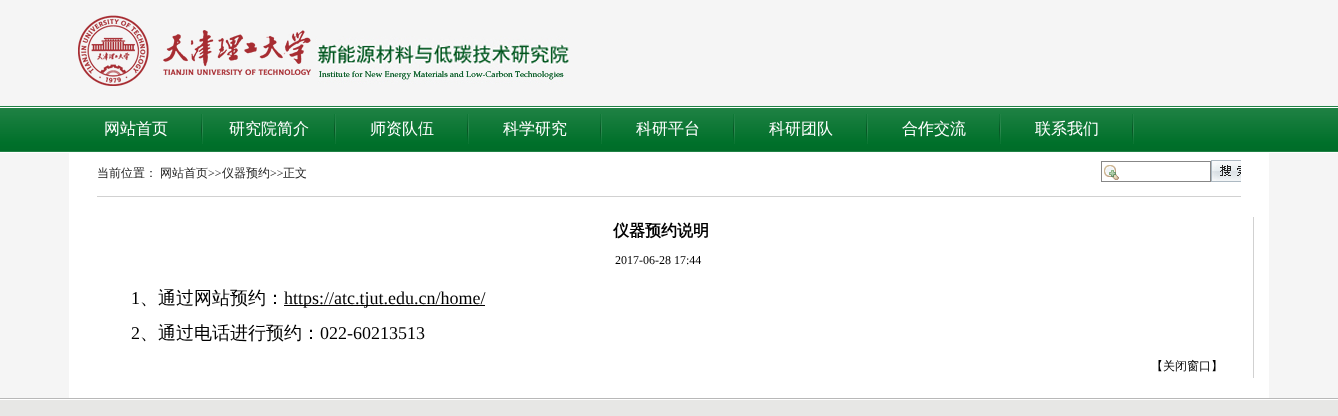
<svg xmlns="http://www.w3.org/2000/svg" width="1338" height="416">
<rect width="100%" height="100%" fill="#f5f5f5"/>
<image x="78" y="15" width="491" height="71" href="media/1.png"/>
<image x="0" y="106" width="1338" height="46" href="media/2.png"/>
<rect y="152" width="1338" height="1" fill="#fff"/>
<rect y="107" width="1338" height="1" fill="#fff"/>
<image x="201" y="114" width="2" height="30" href="media/3.png"/>
<text x="104" y="134" style="font-family:WenQuanYi Zen Hei;font-size:16px;font-weight:500;fill:#fff">网站首页</text>
<image x="334" y="114" width="2" height="30" href="media/3.png"/>
<text x="229" y="134" style="font-family:WenQuanYi Zen Hei;font-size:16px;font-weight:500;fill:#fff">研究院简介</text>
<image x="467" y="114" width="2" height="30" href="media/3.png"/>
<text x="370" y="134" style="font-family:WenQuanYi Zen Hei;font-size:16px;font-weight:500;fill:#fff">师资队伍</text>
<image x="600" y="114" width="2" height="30" href="media/3.png"/>
<text x="503" y="134" style="font-family:WenQuanYi Zen Hei;font-size:16px;font-weight:500;fill:#fff">科学研究</text>
<image x="733" y="114" width="2" height="30" href="media/3.png"/>
<text x="636" y="134" style="font-family:WenQuanYi Zen Hei;font-size:16px;font-weight:500;fill:#fff">科研平台</text>
<image x="866" y="114" width="2" height="30" href="media/3.png"/>
<text x="769" y="134" style="font-family:WenQuanYi Zen Hei;font-size:16px;font-weight:500;fill:#fff">科研团队</text>
<image x="999" y="114" width="2" height="30" href="media/3.png"/>
<text x="902" y="134" style="font-family:WenQuanYi Zen Hei;font-size:16px;font-weight:500;fill:#fff">合作交流</text>
<image x="1132" y="114" width="2" height="30" href="media/3.png"/>
<text x="1035" y="134" style="font-family:WenQuanYi Zen Hei;font-size:16px;font-weight:500;fill:#fff">联系我们</text>
<rect x="69" y="153" width="1200" height="245" fill="#fff"/>
<text x="97" y="177" style="font-family:WenQuanYi Zen Hei;font-size:12px;font-weight:500;fill:#222">当前位置：</text>
<text x="160" y="177" style="font-family:WenQuanYi Zen Hei;font-size:12px;font-weight:500;fill:#222">网站首页</text>
<text x="208" y="177" style="font-family:Liberation Serif;font-size:12px;fill:#222">&gt;&gt;</text>
<text x="222" y="177" style="font-family:WenQuanYi Zen Hei;font-size:12px;font-weight:500;fill:#222">仪器预约</text>
<text x="270" y="177" style="font-family:Liberation Serif;font-size:12px;fill:#222">&gt;&gt;</text>
<text x="283" y="177" style="font-family:WenQuanYi Zen Hei;font-size:12px;font-weight:500;fill:#222">正文</text>
<image x="1104" y="165" width="15" height="15" href="media/4.png"/>
<rect x="1101.5" y="161.5" width="109" height="20" fill="none" stroke="#878787"/>
<image x="1211" y="160" width="30" height="22" href="media/5.png"/>
<rect x="97" y="196" width="1144" height="1" fill="#d1d1d1"/>
<rect x="1253" y="217" width="1" height="161" fill="#d1d1d1"/>
<text x="613" y="236" style="font-family:WenQuanYi Zen Hei;font-size:16px;font-weight:bold;fill:#000">仪器预约说明</text>
<text x="615" y="264" style="font-family:Liberation Serif;font-size:12px;fill:#000">2017-06-28 17:44</text>
<text x="131" y="304" style="font-family:Liberation Serif;font-size:18px;fill:#000">1</text>
<text x="140" y="304" style="font-family:WenQuanYi Zen Hei;font-size:18px;font-weight:500;fill:#000">、通过网站预约：</text>
<rect x="284" y="305" width="201" height="1" fill="#000"/>
<text x="284" y="304" style="font-family:Liberation Serif;font-size:18px;fill:#000">https://atc.tjut.edu.cn/home/</text>
<text x="131" y="339" style="font-family:Liberation Serif;font-size:18px;fill:#000">2</text>
<text x="140" y="339" style="font-family:WenQuanYi Zen Hei;font-size:18px;font-weight:500;fill:#000">、通过电话进行预约：</text>
<text x="320" y="339" style="font-family:Liberation Serif;font-size:18px;fill:#000">022-60213513</text>
<text x="1151" y="370" style="font-family:WenQuanYi Zen Hei;font-size:12px;font-weight:500;fill:#000">【关闭窗口】</text>
<rect y="400" width="1338" height="16" fill="#e7e7e5"/>
<rect y="398" width="1338" height="1" fill="#b8b8b8"/>
<rect y="399" width="1338" height="1" fill="#fff"/>
</svg>
